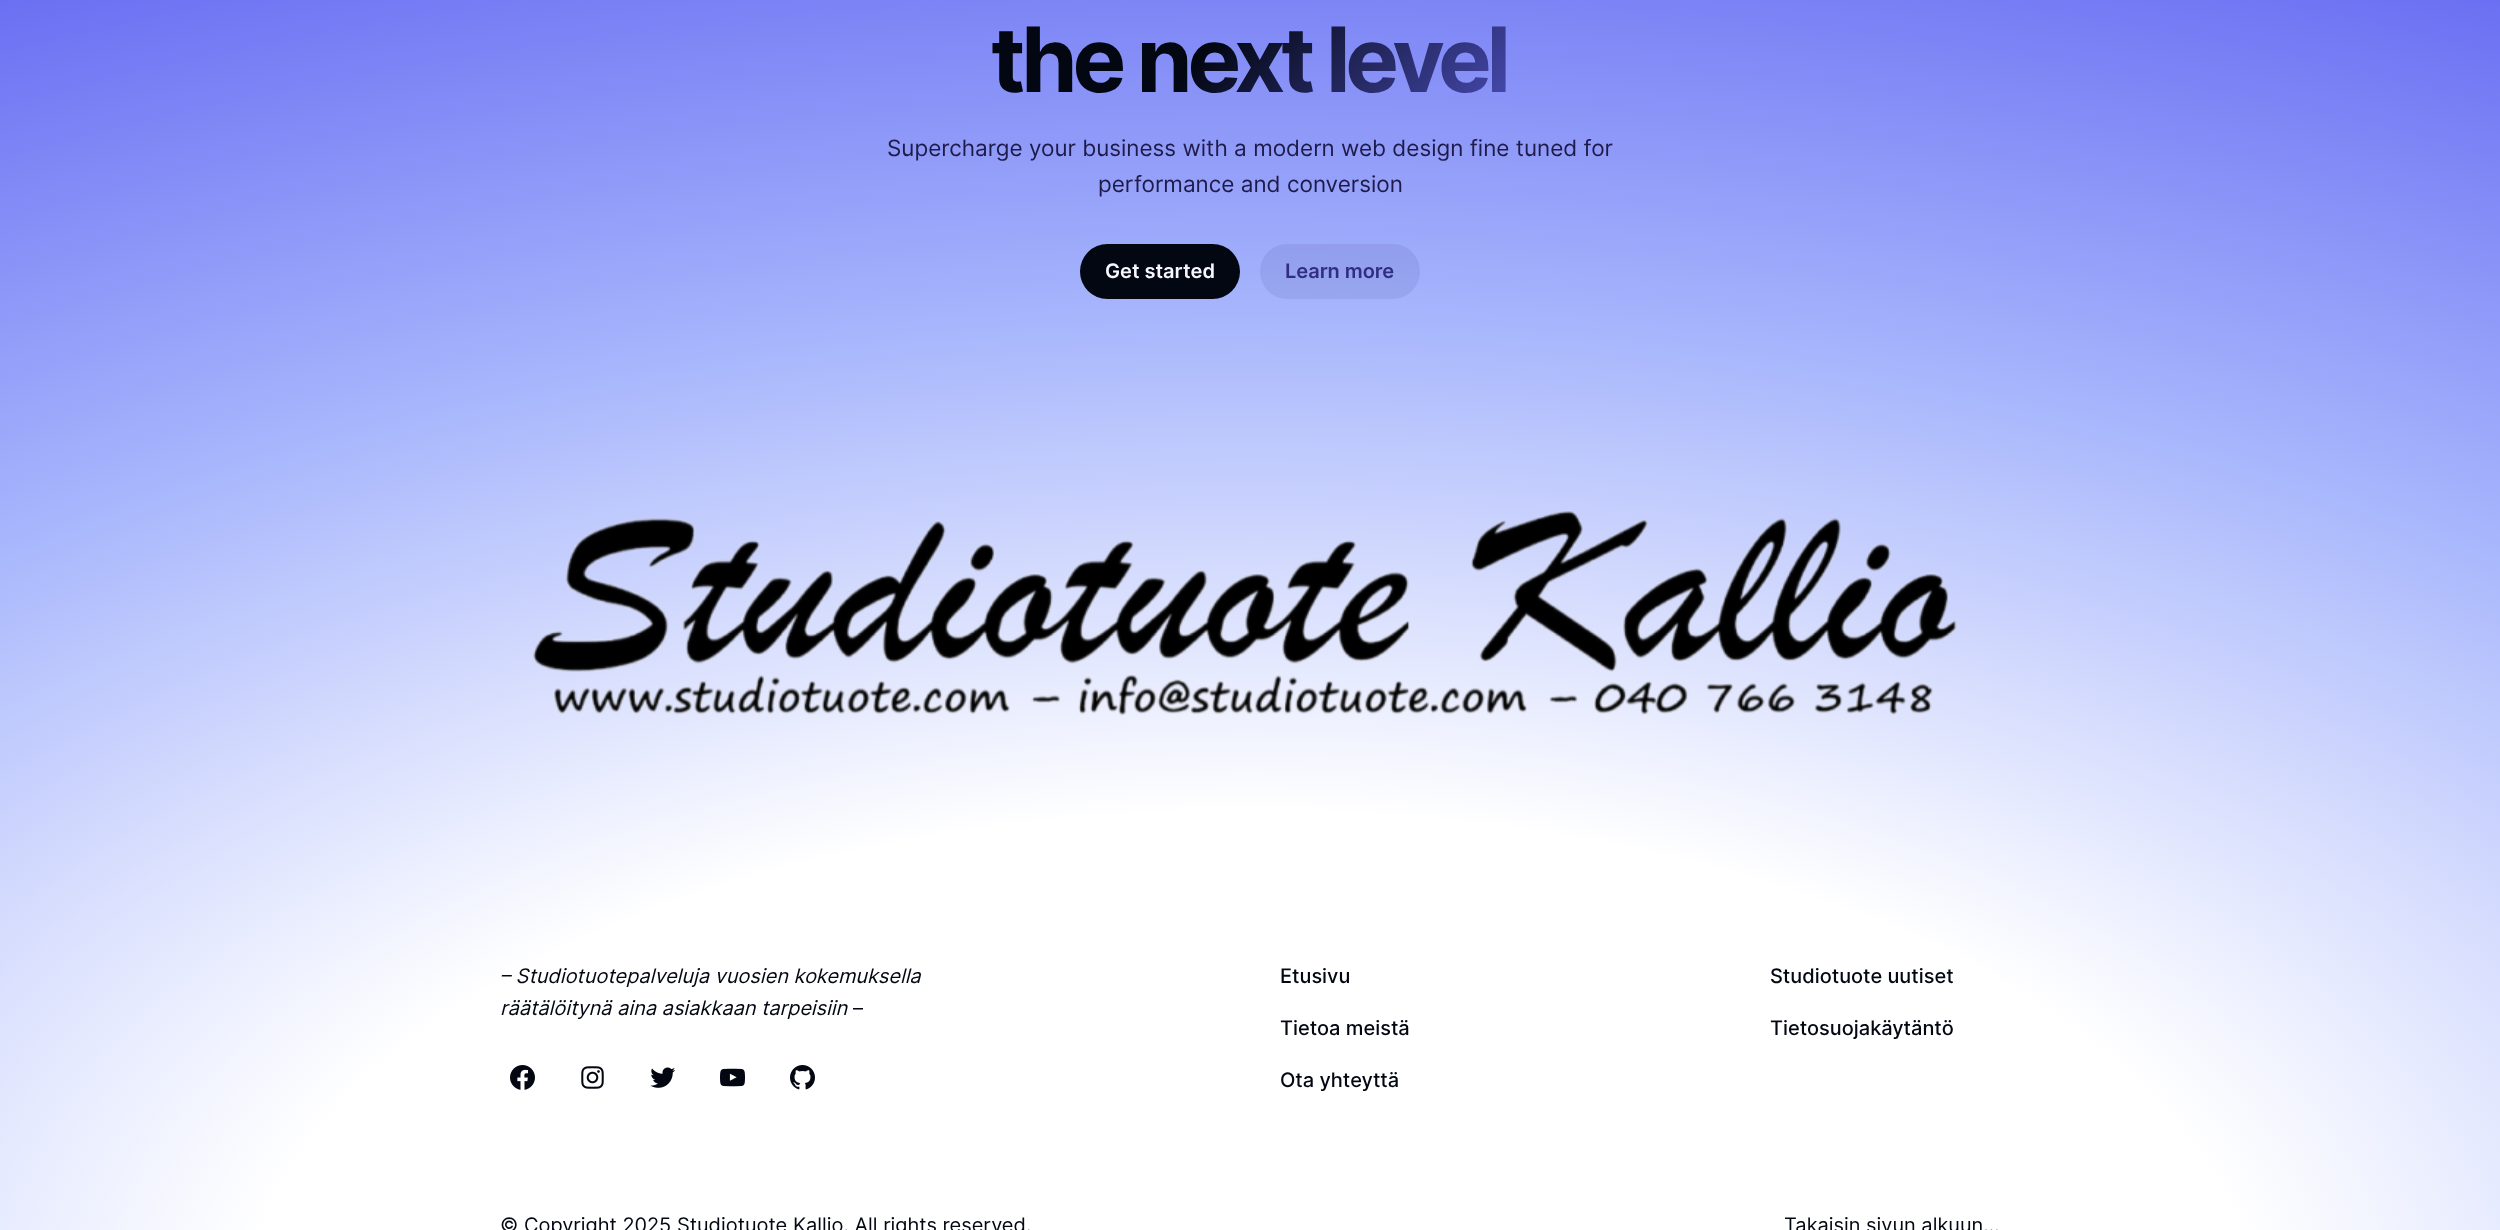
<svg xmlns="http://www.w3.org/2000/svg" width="2500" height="1230">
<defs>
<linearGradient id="g1" gradientUnits="userSpaceOnUse" x1="998" y1="-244" x2="1502" y2="260"><stop offset="0.5" stop-color="#030712"/><stop offset="1" stop-color="#6366f1"/></linearGradient>
<radialGradient id="g2" gradientUnits="userSpaceOnUse" cx="0" cy="0" r="1" gradientTransform="matrix(5000 0 0 2543 1250 1321)"><stop offset="0.2" stop-color="#fff"/><stop offset="0.4" stop-color="#a5b4fc"/><stop offset="0.6" stop-color="#6366f1"/><stop offset="0.8" stop-color="#312e81"/><stop offset="1" stop-color="#030712"/></radialGradient>
</defs>
<rect width="100%" height="100%" fill="#fff"/>
<rect width="2500" height="1230" fill="url(#g2)"/>
<text x="992" y="92" style="font-family:Inter Tight;font-size:90px;font-weight:bold;letter-spacing:-2.25px;fill:url(#g1)">the next level</text>
<text x="887" y="156" style="font-family:Inter;font-size:22.5px;fill:#1e1b4b">Supercharge your business with a modern web design fine tuned for</text>
<text x="1098" y="192" style="font-family:Inter;font-size:22.5px;fill:#1e1b4b">performance and conversion</text>
<rect x="1080" y="244" width="160" height="55" rx="27.5" fill="#030712"/>
<text x="1105" y="278" style="font-family:Inter;font-size:20px;font-weight:600;fill:#f7f8ff">Get started</text>
<rect x="1260" y="244" width="160" height="55" rx="27.5" fill="#312e811a"/>
<text x="1285" y="278" style="font-family:Inter;font-size:20px;font-weight:600;fill:#312e81">Learn more</text>
<image x="533" y="510" width="1424" height="206" href="media/1.png"/>
<text x="500" y="983" style="font-family:Inter;font-size:20px;font-style:italic;fill:#030712">– Studiotuotepalveluja vuosien kokemuksella</text>
<text x="500" y="1015" style="font-family:Inter;font-size:20px;font-style:italic;fill:#030712">räätälöitynä aina asiakkaan tarpeisiin</text>
<text x="853" y="1015" style="font-family:Inter;font-size:20px;fill:#030712">–</text>
<image x="510" y="1065" width="25" height="25" href="media/2.png"/>
<image x="581" y="1066" width="23" height="23" href="media/3.png"/>
<image x="650" y="1067" width="26" height="21" href="media/4.png"/>
<image x="720" y="1068" width="25" height="19" href="media/5.png"/>
<image x="790" y="1065" width="25" height="25" href="media/6.png"/>
<text x="1280" y="983" style="font-family:Inter;font-size:20px;font-weight:500;fill:#030712">Etusivu</text>
<text x="1280" y="1035" style="font-family:Inter;font-size:20px;font-weight:500;fill:#030712">Tietoa meistä</text>
<text x="1280" y="1087" style="font-family:Inter;font-size:20px;font-weight:500;fill:#030712">Ota yhteyttä</text>
<text x="1770" y="983" style="font-family:Inter;font-size:20px;font-weight:500;fill:#030712">Studiotuote uutiset</text>
<text x="1770" y="1035" style="font-family:Inter;font-size:20px;font-weight:500;fill:#030712">Tietosuojakäytäntö</text>
<text x="500" y="1232" style="font-family:Inter;font-size:20px;fill:#030712">© Copyright 2025 Studiotuote Kallio. All rights reserved.</text>
<text x="1784" y="1232" style="font-family:Inter;font-size:20px;fill:#030712">Takaisin sivun alkuun…</text>
</svg>
